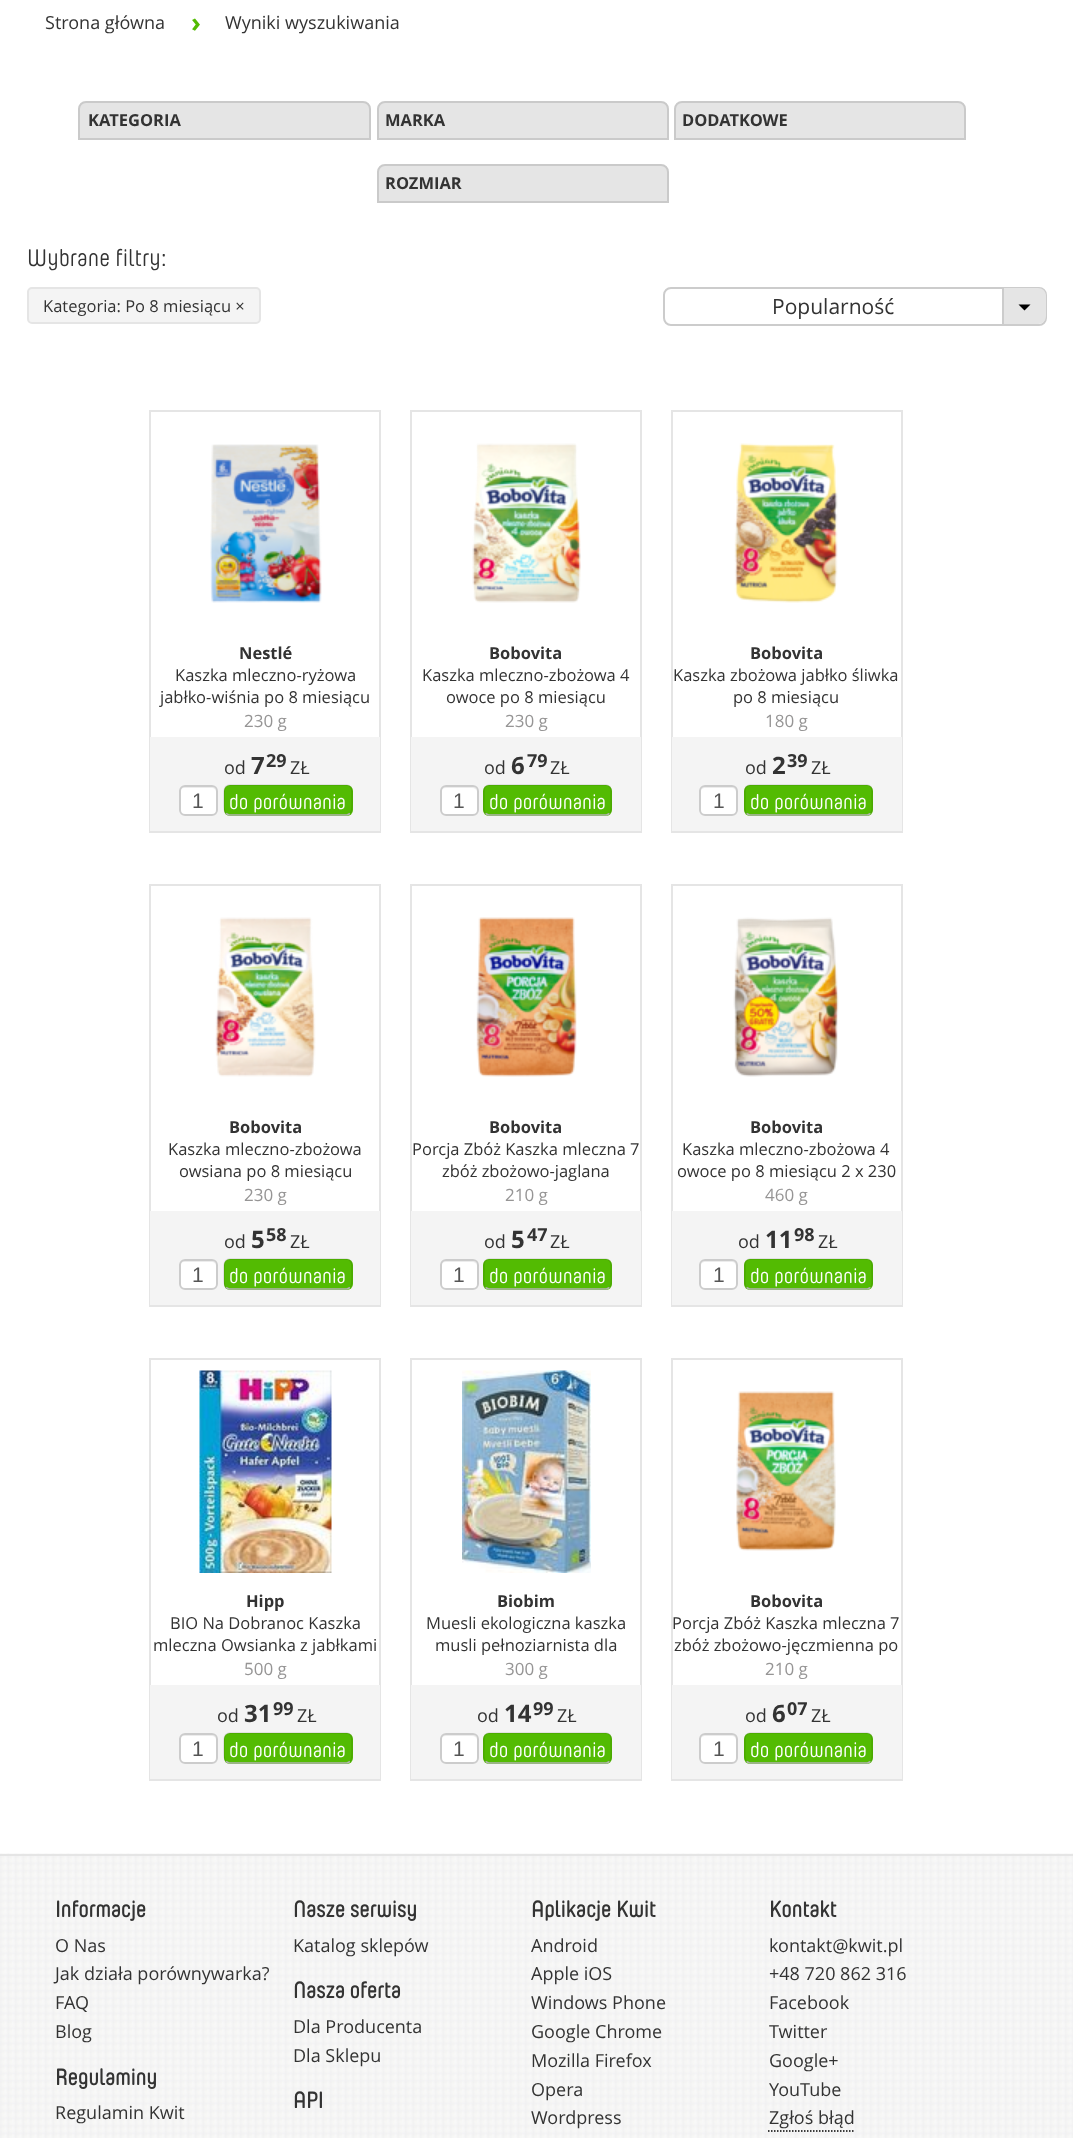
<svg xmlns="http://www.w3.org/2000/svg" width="1073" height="2138">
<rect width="100%" height="100%" fill="#fff"/>
<text x="45" y="29" style="font-family:Open Sans;font-size:18px;fill:#333">Strona główna</text>
<text x="191" y="32" style="font-family:Open Sans;font-size:27px;font-weight:bold;fill:#53bb02">›</text>
<text x="225" y="29" style="font-family:Open Sans;font-size:18px;fill:#333">Wyniki wyszukiwania</text>
<path d="M86 102h277c4 0 7 3 7 7v30h-291v-30c0-4 3-7 7-7z" fill="#e5e5e5" stroke="#cacaca" stroke-width="2"/>
<text x="88" y="126" style="font-family:Open Sans;font-size:16.5px;font-weight:bold;fill:#333">KATEGORIA</text>
<path d="M385 102h276c4 0 7 3 7 7v30h-290v-30c0-4 3-7 7-7z" fill="#e5e5e5" stroke="#cacaca" stroke-width="2"/>
<text x="385" y="126" style="font-family:Open Sans;font-size:16.5px;font-weight:bold;fill:#333">MARKA</text>
<path d="M682 102h276c4 0 7 3 7 7v30h-290v-30c0-4 3-7 7-7z" fill="#e5e5e5" stroke="#cacaca" stroke-width="2"/>
<text x="682" y="126" style="font-family:Open Sans;font-size:16.5px;font-weight:bold;fill:#333">DODATKOWE</text>
<path d="M385 165h276c4 0 7 3 7 7v30h-290v-30c0-4 3-7 7-7z" fill="#e5e5e5" stroke="#cacaca" stroke-width="2"/>
<text x="385" y="189" style="font-family:Open Sans;font-size:16.5px;font-weight:bold;fill:#333">ROZMIAR</text>
<text x="27" y="266" style="font-family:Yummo;font-size:24px;fill:#333">Wybrane filtry:</text>
<rect x="28" y="288" width="232" height="35" rx="4" fill="#f4f4f4" stroke="#e5e5e5" stroke-width="2"/>
<text x="43" y="312" style="font-family:Open Sans;font-size:16.5px;fill:#333">Kategoria: Po 8 miesiącu ×</text>
<rect x="664" y="288" width="382" height="37" rx="7" fill="none" stroke="#ccc" stroke-width="2"/>
<text x="772" y="314" style="font-family:Open Sans;font-size:21px;fill:#333">Popularność</text>
<path d="M1002 288h36c4.5 0 8 3.5 8 8v20c0 4.5-3.5 8-8 8h-36z" fill="#e5e5e5"/>
<rect x="1002" y="288" width="2" height="36" fill="#ccc"/>
<path d="M1018.5 304.5h12l-6 6z" fill="#000"/>
<rect x="150" y="411" width="230" height="421" fill="none" stroke="#e5e5e5" stroke-width="2"/>
<image x="210" y="444" width="112" height="159" href="media/1.png"/>
<text x="239" y="659" style="font-family:Open Sans;font-size:16.5px;font-weight:bold;fill:#333">Nestlé</text>
<text x="175" y="681" style="font-family:Open Sans;font-size:16.5px;fill:#333">Kaszka mleczno-ryżowa</text>
<text x="160" y="703" style="font-family:Open Sans;font-size:16.5px;fill:#333">jabłko-wiśnia po 8 miesiącu</text>
<text x="244" y="727" style="font-family:Open Sans;font-size:17px;fill:#969595">230 g</text>
<rect x="150" y="737" width="230" height="94" fill="#f4f4f4"/>
<text x="224" y="774" style="font-family:Open Sans;font-size:18px;fill:#333">od</text>
<text x="251" y="774" style="font-family:Open Sans;font-size:24px;font-weight:bold;fill:#333">7</text>
<text x="266" y="767" style="font-family:Open Sans;font-size:18px;font-weight:bold;fill:#333">29</text>
<text x="290" y="774" style="font-family:Open Sans;font-size:18px;fill:#333">ZŁ</text>
<rect x="179" y="785" width="39" height="31" rx="6" fill="#fff"/>
<path d="M184 788h28c2 0 4 2 4 4c0-6.5-4-6-9.5-6h-17c-5.5 0-9.5-.5-9.5 6c0-2 2-4 4-4z" fill="#ececec"/>
<rect x="180" y="786" width="37" height="29" rx="5" fill="none" stroke="#ccc" stroke-width="2"/>
<text x="192" y="808" style="font-family:Liberation Sans;font-size:21px;fill:#555">1</text>
<rect x="224" y="785" width="129" height="31" rx="6" fill="#53bb02"/>
<path d="M350 813.5l-3 1.5h-118l-3-1.5" fill="none" stroke="#b3b3b3" stroke-width="1.5"/>
<path d="M226 813.5c-3-2.5-2-12.5-2-16.5c0-4-1-11.5 5.5-12h117c6.5 .5 5.5 8 5.5 12c0 4 1 14-2 16.5" fill="none" stroke="#0000001a" stroke-width="1.5"/>
<text x="229" y="809" style="font-family:Yummo;font-size:21px;fill:#fff">do porównania</text>
<rect x="411" y="411" width="230" height="421" fill="none" stroke="#e5e5e5" stroke-width="2"/>
<image x="472" y="443" width="109" height="160" href="media/2.png"/>
<text x="489" y="659" style="font-family:Open Sans;font-size:16.5px;font-weight:bold;fill:#333">Bobovita</text>
<text x="422" y="681" style="font-family:Open Sans;font-size:16.5px;fill:#333">Kaszka mleczno-zbożowa 4</text>
<text x="446" y="703" style="font-family:Open Sans;font-size:16.5px;fill:#333">owoce po 8 miesiącu</text>
<text x="505" y="727" style="font-family:Open Sans;font-size:17px;fill:#969595">230 g</text>
<rect x="411" y="737" width="230" height="94" fill="#f4f4f4"/>
<text x="484" y="774" style="font-family:Open Sans;font-size:18px;fill:#333">od</text>
<text x="511" y="774" style="font-family:Open Sans;font-size:24px;font-weight:bold;fill:#333">6</text>
<text x="527" y="767" style="font-family:Open Sans;font-size:18px;font-weight:bold;fill:#333">79</text>
<text x="550" y="774" style="font-family:Open Sans;font-size:18px;fill:#333">ZŁ</text>
<rect x="440" y="785" width="39" height="31" rx="6" fill="#fff"/>
<path d="M446 788h26c3 0 5 2 5 4c0-6.5-4-6-9.5-6h-17c-5.5 0-9.5-.5-9.5 6c0-2 2-4 5-4z" fill="#ececec"/>
<rect x="441" y="786" width="37" height="29" rx="5" fill="none" stroke="#ccc" stroke-width="2"/>
<text x="453" y="808" style="font-family:Liberation Sans;font-size:21px;fill:#555">1</text>
<rect x="483" y="785" width="129" height="31" rx="6" fill="#53bb02"/>
<path d="M609.5 813.5l-3 1.5h-118l-3-1.5" fill="none" stroke="#b3b3b3" stroke-width="1.5"/>
<path d="M485.5 813.5c-3-2.5-1.5-12.5-1.5-16.5c0-4-1.5-11.5 5-12h117c6.5 .5 5 8 5 12c0 4 1.5 14-1.5 16.5" fill="none" stroke="#0000001a" stroke-width="1.5"/>
<text x="489" y="809" style="font-family:Yummo;font-size:21px;fill:#fff">do porównania</text>
<rect x="672" y="411" width="230" height="421" fill="none" stroke="#e5e5e5" stroke-width="2"/>
<image x="734" y="443" width="104" height="160" href="media/3.png"/>
<text x="750" y="659" style="font-family:Open Sans;font-size:16.5px;font-weight:bold;fill:#333">Bobovita</text>
<text x="673" y="681" style="font-family:Open Sans;font-size:16.5px;fill:#333">Kaszka zbożowa jabłko śliwka</text>
<text x="733" y="703" style="font-family:Open Sans;font-size:16.5px;fill:#333">po 8 miesiącu</text>
<text x="765" y="727" style="font-family:Open Sans;font-size:17px;fill:#969595">180 g</text>
<rect x="672" y="737" width="230" height="94" fill="#f4f4f4"/>
<text x="745" y="774" style="font-family:Open Sans;font-size:18px;fill:#333">od</text>
<text x="772" y="774" style="font-family:Open Sans;font-size:24px;font-weight:bold;fill:#333">2</text>
<text x="787" y="767" style="font-family:Open Sans;font-size:18px;font-weight:bold;fill:#333">39</text>
<text x="811" y="774" style="font-family:Open Sans;font-size:18px;fill:#333">ZŁ</text>
<rect x="699" y="785" width="39" height="31" rx="6" fill="#fff"/>
<path d="M705 788h27c2 0 4 2 4 4v20l-.5 1.5c1-1 1.5-2 1.5-3.5v-19c0-3-2-5-5-5h-26c-2.5 0-4.5 1.5-5 4c1-1.5 3-2 4-2z" fill="#ececec"/>
<rect x="700" y="786" width="37" height="29" rx="5" fill="none" stroke="#ccc" stroke-width="2"/>
<text x="713" y="808" style="font-family:Liberation Sans;font-size:21px;fill:#555">1</text>
<rect x="744" y="785" width="129" height="31" rx="6" fill="#53bb02"/>
<path d="M870.5 813.5l-3 1.5h-118l-3-1.5" fill="none" stroke="#b3b3b3" stroke-width="1.5"/>
<path d="M746.5 813.5c-3-2.5-1.5-12.5-1.5-16.5c0-4-1.5-11.5 5-12h117c6.5 .5 5 8 5 12c0 4 1.5 14-1.5 16.5" fill="none" stroke="#0000001a" stroke-width="1.5"/>
<text x="750" y="809" style="font-family:Yummo;font-size:21px;fill:#fff">do porównania</text>
<rect x="150" y="885" width="230" height="421" fill="none" stroke="#e5e5e5" stroke-width="2"/>
<image x="215" y="917" width="101" height="160" href="media/4.png"/>
<text x="229" y="1133" style="font-family:Open Sans;font-size:16.5px;font-weight:bold;fill:#333">Bobovita</text>
<text x="168" y="1155" style="font-family:Open Sans;font-size:16.5px;fill:#333">Kaszka mleczno-zbożowa</text>
<text x="179" y="1177" style="font-family:Open Sans;font-size:16.5px;fill:#333">owsiana po 8 miesiącu</text>
<text x="244" y="1201" style="font-family:Open Sans;font-size:17px;fill:#969595">230 g</text>
<rect x="150" y="1211" width="230" height="94" fill="#f4f4f4"/>
<text x="224" y="1248" style="font-family:Open Sans;font-size:18px;fill:#333">od</text>
<text x="251" y="1248" style="font-family:Open Sans;font-size:24px;font-weight:bold;fill:#333">5</text>
<text x="266" y="1241" style="font-family:Open Sans;font-size:18px;font-weight:bold;fill:#333">58</text>
<text x="290" y="1248" style="font-family:Open Sans;font-size:18px;fill:#333">ZŁ</text>
<rect x="179" y="1259" width="39" height="31" rx="6" fill="#fff"/>
<path d="M184 1262h28c2 0 4 2 4 4c0-6.5-4-6-9.5-6h-17c-5.5 0-9.5-.5-9.5 6c0-2 2-4 4-4z" fill="#ececec"/>
<rect x="180" y="1260" width="37" height="29" rx="5" fill="none" stroke="#ccc" stroke-width="2"/>
<text x="192" y="1282" style="font-family:Liberation Sans;font-size:21px;fill:#555">1</text>
<rect x="224" y="1259" width="129" height="31" rx="6" fill="#53bb02"/>
<path d="M350 1287.5l-3 1.5h-118l-3-1.5" fill="none" stroke="#b3b3b3" stroke-width="1.5"/>
<path d="M226 1287.5c-3-2.5-2-12.5-2-16.5c0-4-1-11.5 5.5-12h117c6.5 .5 5.5 8 5.5 12c0 4 1 14-2 16.5" fill="none" stroke="#0000001a" stroke-width="1.5"/>
<text x="229" y="1283" style="font-family:Yummo;font-size:21px;fill:#fff">do porównania</text>
<rect x="411" y="885" width="230" height="421" fill="none" stroke="#e5e5e5" stroke-width="2"/>
<image x="476" y="917" width="101" height="160" href="media/5.png"/>
<text x="489" y="1133" style="font-family:Open Sans;font-size:16.5px;font-weight:bold;fill:#333">Bobovita</text>
<text x="412" y="1155" style="font-family:Open Sans;font-size:16.5px;fill:#333">Porcja Zbóż Kaszka mleczna 7</text>
<text x="442" y="1177" style="font-family:Open Sans;font-size:16.5px;fill:#333">zbóż zbożowo-jaglana</text>
<text x="505" y="1201" style="font-family:Open Sans;font-size:17px;fill:#969595">210 g</text>
<rect x="411" y="1211" width="230" height="94" fill="#f4f4f4"/>
<text x="484" y="1248" style="font-family:Open Sans;font-size:18px;fill:#333">od</text>
<text x="511" y="1248" style="font-family:Open Sans;font-size:24px;font-weight:bold;fill:#333">5</text>
<text x="527" y="1241" style="font-family:Open Sans;font-size:18px;font-weight:bold;fill:#333">47</text>
<text x="550" y="1248" style="font-family:Open Sans;font-size:18px;fill:#333">ZŁ</text>
<rect x="440" y="1259" width="39" height="31" rx="6" fill="#fff"/>
<path d="M446 1262h26c3 0 5 2 5 4c0-6.5-4-6-9.5-6h-17c-5.5 0-9.5-.5-9.5 6c0-2 2-4 5-4z" fill="#ececec"/>
<rect x="441" y="1260" width="37" height="29" rx="5" fill="none" stroke="#ccc" stroke-width="2"/>
<text x="453" y="1282" style="font-family:Liberation Sans;font-size:21px;fill:#555">1</text>
<rect x="483" y="1259" width="129" height="31" rx="6" fill="#53bb02"/>
<path d="M609.5 1287.5l-3 1.5h-118l-3-1.5" fill="none" stroke="#b3b3b3" stroke-width="1.5"/>
<path d="M485.5 1287.5c-3-2.5-1.5-12.5-1.5-16.5c0-4-1.5-11.5 5-12h117c6.5 .5 5 8 5 12c0 4 1.5 14-1.5 16.5" fill="none" stroke="#0000001a" stroke-width="1.5"/>
<text x="489" y="1283" style="font-family:Yummo;font-size:21px;fill:#fff">do porównania</text>
<rect x="672" y="885" width="230" height="421" fill="none" stroke="#e5e5e5" stroke-width="2"/>
<image x="733" y="917" width="106" height="160" href="media/6.png"/>
<text x="750" y="1133" style="font-family:Open Sans;font-size:16.5px;font-weight:bold;fill:#333">Bobovita</text>
<text x="682" y="1155" style="font-family:Open Sans;font-size:16.5px;fill:#333">Kaszka mleczno-zbożowa 4</text>
<text x="677" y="1177" style="font-family:Open Sans;font-size:16.5px;fill:#333">owoce po 8 miesiącu 2 x 230</text>
<text x="765" y="1201" style="font-family:Open Sans;font-size:17px;fill:#969595">460 g</text>
<rect x="672" y="1211" width="230" height="94" fill="#f4f4f4"/>
<text x="738" y="1248" style="font-family:Open Sans;font-size:18px;fill:#333">od</text>
<text x="765" y="1248" style="font-family:Open Sans;font-size:24px;font-weight:bold;fill:#333">11</text>
<text x="794" y="1241" style="font-family:Open Sans;font-size:18px;font-weight:bold;fill:#333">98</text>
<text x="818" y="1248" style="font-family:Open Sans;font-size:18px;fill:#333">ZŁ</text>
<rect x="699" y="1259" width="39" height="31" rx="6" fill="#fff"/>
<path d="M705 1262h27c2 0 4 2 4 4v20l-.5 1.5c1-1 1.5-2 1.5-3.5v-19c0-3-2-5-5-5h-26c-2.5 0-4.5 1.5-5 4c1-1.5 3-2 4-2z" fill="#ececec"/>
<rect x="700" y="1260" width="37" height="29" rx="5" fill="none" stroke="#ccc" stroke-width="2"/>
<text x="713" y="1282" style="font-family:Liberation Sans;font-size:21px;fill:#555">1</text>
<rect x="744" y="1259" width="129" height="31" rx="6" fill="#53bb02"/>
<path d="M870.5 1287.5l-3 1.5h-118l-3-1.5" fill="none" stroke="#b3b3b3" stroke-width="1.5"/>
<path d="M746.5 1287.5c-3-2.5-1.5-12.5-1.5-16.5c0-4-1.5-11.5 5-12h117c6.5 .5 5 8 5 12c0 4 1.5 14-1.5 16.5" fill="none" stroke="#0000001a" stroke-width="1.5"/>
<text x="750" y="1283" style="font-family:Yummo;font-size:21px;fill:#fff">do porównania</text>
<rect x="150" y="1359" width="230" height="421" fill="none" stroke="#e5e5e5" stroke-width="2"/>
<image x="199" y="1370" width="133" height="203" href="media/7.png"/>
<text x="246" y="1607" style="font-family:Open Sans;font-size:16.5px;font-weight:bold;fill:#333">Hipp</text>
<text x="170" y="1629" style="font-family:Open Sans;font-size:16.5px;fill:#333">BIO Na Dobranoc Kaszka</text>
<text x="153" y="1651" style="font-family:Open Sans;font-size:16.5px;fill:#333">mleczna Owsianka z jabłkami</text>
<text x="244" y="1675" style="font-family:Open Sans;font-size:17px;fill:#969595">500 g</text>
<rect x="150" y="1685" width="230" height="94" fill="#f4f4f4"/>
<text x="217" y="1722" style="font-family:Open Sans;font-size:18px;fill:#333">od</text>
<text x="244" y="1722" style="font-family:Open Sans;font-size:24px;font-weight:bold;fill:#333">31</text>
<text x="273" y="1715" style="font-family:Open Sans;font-size:18px;font-weight:bold;fill:#333">99</text>
<text x="297" y="1722" style="font-family:Open Sans;font-size:18px;fill:#333">ZŁ</text>
<rect x="179" y="1733" width="39" height="31" rx="6" fill="#fff"/>
<path d="M184 1736h28c2 0 4 2 4 4c0-6.5-4-6-9.5-6h-17c-5.5 0-9.5-.5-9.5 6c0-2 2-4 4-4z" fill="#ececec"/>
<rect x="180" y="1734" width="37" height="29" rx="5" fill="none" stroke="#ccc" stroke-width="2"/>
<text x="192" y="1756" style="font-family:Liberation Sans;font-size:21px;fill:#555">1</text>
<rect x="224" y="1733" width="129" height="31" rx="6" fill="#53bb02"/>
<path d="M350 1761.5l-3 1.5h-118l-3-1.5" fill="none" stroke="#b3b3b3" stroke-width="1.5"/>
<path d="M226 1761.5c-3-2.5-2-12.5-2-16.5c0-4-1-11.5 5.5-12h117c6.5 .5 5.5 8 5.5 12c0 4 1 14-2 16.5" fill="none" stroke="#0000001a" stroke-width="1.5"/>
<text x="229" y="1757" style="font-family:Yummo;font-size:21px;fill:#fff">do porównania</text>
<rect x="411" y="1359" width="230" height="421" fill="none" stroke="#e5e5e5" stroke-width="2"/>
<image x="462" y="1370" width="129" height="203" href="media/8.png"/>
<text x="497" y="1607" style="font-family:Open Sans;font-size:16.5px;font-weight:bold;fill:#333">Biobim</text>
<text x="426" y="1629" style="font-family:Open Sans;font-size:16.5px;fill:#333">Muesli ekologiczna kaszka</text>
<text x="435" y="1651" style="font-family:Open Sans;font-size:16.5px;fill:#333">musli pełnoziarnista dla</text>
<text x="505" y="1675" style="font-family:Open Sans;font-size:17px;fill:#969595">300 g</text>
<rect x="411" y="1685" width="230" height="94" fill="#f4f4f4"/>
<text x="477" y="1722" style="font-family:Open Sans;font-size:18px;fill:#333">od</text>
<text x="504" y="1722" style="font-family:Open Sans;font-size:24px;font-weight:bold;fill:#333">14</text>
<text x="533" y="1715" style="font-family:Open Sans;font-size:18px;font-weight:bold;fill:#333">99</text>
<text x="557" y="1722" style="font-family:Open Sans;font-size:18px;fill:#333">ZŁ</text>
<rect x="440" y="1733" width="39" height="31" rx="6" fill="#fff"/>
<path d="M446 1736h26c3 0 5 2 5 4c0-6.5-4-6-9.5-6h-17c-5.5 0-9.5-.5-9.5 6c0-2 2-4 5-4z" fill="#ececec"/>
<rect x="441" y="1734" width="37" height="29" rx="5" fill="none" stroke="#ccc" stroke-width="2"/>
<text x="453" y="1756" style="font-family:Liberation Sans;font-size:21px;fill:#555">1</text>
<rect x="483" y="1733" width="129" height="31" rx="6" fill="#53bb02"/>
<path d="M609.5 1761.5l-3 1.5h-118l-3-1.5" fill="none" stroke="#b3b3b3" stroke-width="1.5"/>
<path d="M485.5 1761.5c-3-2.5-1.5-12.5-1.5-16.5c0-4-1.5-11.5 5-12h117c6.5 .5 5 8 5 12c0 4 1.5 14-1.5 16.5" fill="none" stroke="#0000001a" stroke-width="1.5"/>
<text x="489" y="1757" style="font-family:Yummo;font-size:21px;fill:#fff">do porównania</text>
<rect x="672" y="1359" width="230" height="421" fill="none" stroke="#e5e5e5" stroke-width="2"/>
<image x="736" y="1391" width="100" height="160" href="media/9.png"/>
<text x="750" y="1607" style="font-family:Open Sans;font-size:16.5px;font-weight:bold;fill:#333">Bobovita</text>
<text x="672" y="1629" style="font-family:Open Sans;font-size:16.5px;fill:#333">Porcja Zbóż Kaszka mleczna 7</text>
<text x="674" y="1651" style="font-family:Open Sans;font-size:16.5px;fill:#333">zbóż zbożowo-jęczmienna po</text>
<text x="765" y="1675" style="font-family:Open Sans;font-size:17px;fill:#969595">210 g</text>
<rect x="672" y="1685" width="230" height="94" fill="#f4f4f4"/>
<text x="745" y="1722" style="font-family:Open Sans;font-size:18px;fill:#333">od</text>
<text x="772" y="1722" style="font-family:Open Sans;font-size:24px;font-weight:bold;fill:#333">6</text>
<text x="787" y="1715" style="font-family:Open Sans;font-size:18px;font-weight:bold;fill:#333">07</text>
<text x="811" y="1722" style="font-family:Open Sans;font-size:18px;fill:#333">ZŁ</text>
<rect x="699" y="1733" width="39" height="31" rx="6" fill="#fff"/>
<path d="M705 1736h27c2 0 4 2 4 4v20l-.5 1.5c1-1 1.5-2 1.5-3.5v-19c0-3-2-5-5-5h-26c-2.5 0-4.5 1.5-5 4c1-1.5 3-2 4-2z" fill="#ececec"/>
<rect x="700" y="1734" width="37" height="29" rx="5" fill="none" stroke="#ccc" stroke-width="2"/>
<text x="713" y="1756" style="font-family:Liberation Sans;font-size:21px;fill:#555">1</text>
<rect x="744" y="1733" width="129" height="31" rx="6" fill="#53bb02"/>
<path d="M870.5 1761.5l-3 1.5h-118l-3-1.5" fill="none" stroke="#b3b3b3" stroke-width="1.5"/>
<path d="M746.5 1761.5c-3-2.5-1.5-12.5-1.5-16.5c0-4-1.5-11.5 5-12h117c6.5 .5 5 8 5 12c0 4 1.5 14-1.5 16.5" fill="none" stroke="#0000001a" stroke-width="1.5"/>
<text x="750" y="1757" style="font-family:Yummo;font-size:21px;fill:#fff">do porównania</text>
<image x="0" y="1853" width="1073" height="285" href="media/10.png"/>
<rect y="1854" width="1073" height="2" fill="#e5e5e5"/>
<text x="55" y="1917" style="font-family:Yummo;font-size:22.5px;font-weight:bold;fill:#333">Informacje</text>
<text x="55" y="1952" style="font-family:Open Sans;font-size:18px;fill:#333">O Nas</text>
<text x="55" y="1980" style="font-family:Open Sans;font-size:18px;fill:#333">Jak działa porównywarka?</text>
<text x="55" y="2009" style="font-family:Open Sans;font-size:18px;fill:#333">FAQ</text>
<text x="55" y="2038" style="font-family:Open Sans;font-size:18px;fill:#333">Blog</text>
<text x="55" y="2085" style="font-family:Yummo;font-size:22.5px;font-weight:bold;fill:#333">Regulaminy</text>
<text x="55" y="2119" style="font-family:Open Sans;font-size:18px;fill:#333">Regulamin Kwit</text>
<text x="293" y="1917" style="font-family:Yummo;font-size:22.5px;font-weight:bold;fill:#333">Nasze serwisy</text>
<text x="293" y="1952" style="font-family:Open Sans;font-size:18px;fill:#333">Katalog sklepów</text>
<text x="293" y="1998" style="font-family:Yummo;font-size:22.5px;font-weight:bold;fill:#333">Nasza oferta</text>
<text x="293" y="2033" style="font-family:Open Sans;font-size:18px;fill:#333">Dla Producenta</text>
<text x="293" y="2062" style="font-family:Open Sans;font-size:18px;fill:#333">Dla Sklepu</text>
<text x="293" y="2108" style="font-family:Yummo;font-size:22.5px;font-weight:bold;fill:#333">API</text>
<text x="531" y="1917" style="font-family:Yummo;font-size:22.5px;font-weight:bold;fill:#333">Aplikacje Kwit</text>
<text x="531" y="1952" style="font-family:Open Sans;font-size:18px;fill:#333">Android</text>
<text x="531" y="1980" style="font-family:Open Sans;font-size:18px;fill:#333">Apple iOS</text>
<text x="531" y="2009" style="font-family:Open Sans;font-size:18px;fill:#333">Windows Phone</text>
<text x="531" y="2038" style="font-family:Open Sans;font-size:18px;fill:#333">Google Chrome</text>
<text x="531" y="2067" style="font-family:Open Sans;font-size:18px;fill:#333">Mozilla Firefox</text>
<text x="531" y="2096" style="font-family:Open Sans;font-size:18px;fill:#333">Opera</text>
<text x="531" y="2124" style="font-family:Open Sans;font-size:18px;fill:#333">Wordpress</text>
<text x="769" y="1917" style="font-family:Yummo;font-size:22.5px;font-weight:bold;fill:#333">Kontakt</text>
<text x="769" y="1952" style="font-family:Open Sans;font-size:18px;fill:#333">kontakt@kwit.pl</text>
<text x="769" y="1980" style="font-family:Open Sans;font-size:18px;fill:#333">+48 720 862 316</text>
<text x="769" y="2009" style="font-family:Open Sans;font-size:18px;fill:#333">Facebook</text>
<text x="769" y="2038" style="font-family:Open Sans;font-size:18px;fill:#333">Twitter</text>
<text x="769" y="2067" style="font-family:Open Sans;font-size:18px;fill:#333">Google+</text>
<text x="769" y="2096" style="font-family:Open Sans;font-size:18px;fill:#333">YouTube</text>
<text x="769" y="2124" style="font-family:Open Sans;font-size:18px;fill:#333">Zgłoś błąd</text>
<path d="M768 2131h87" fill="none" stroke="#000" stroke-width="1.5" stroke-dasharray="1.5 1.5"/>
</svg>
